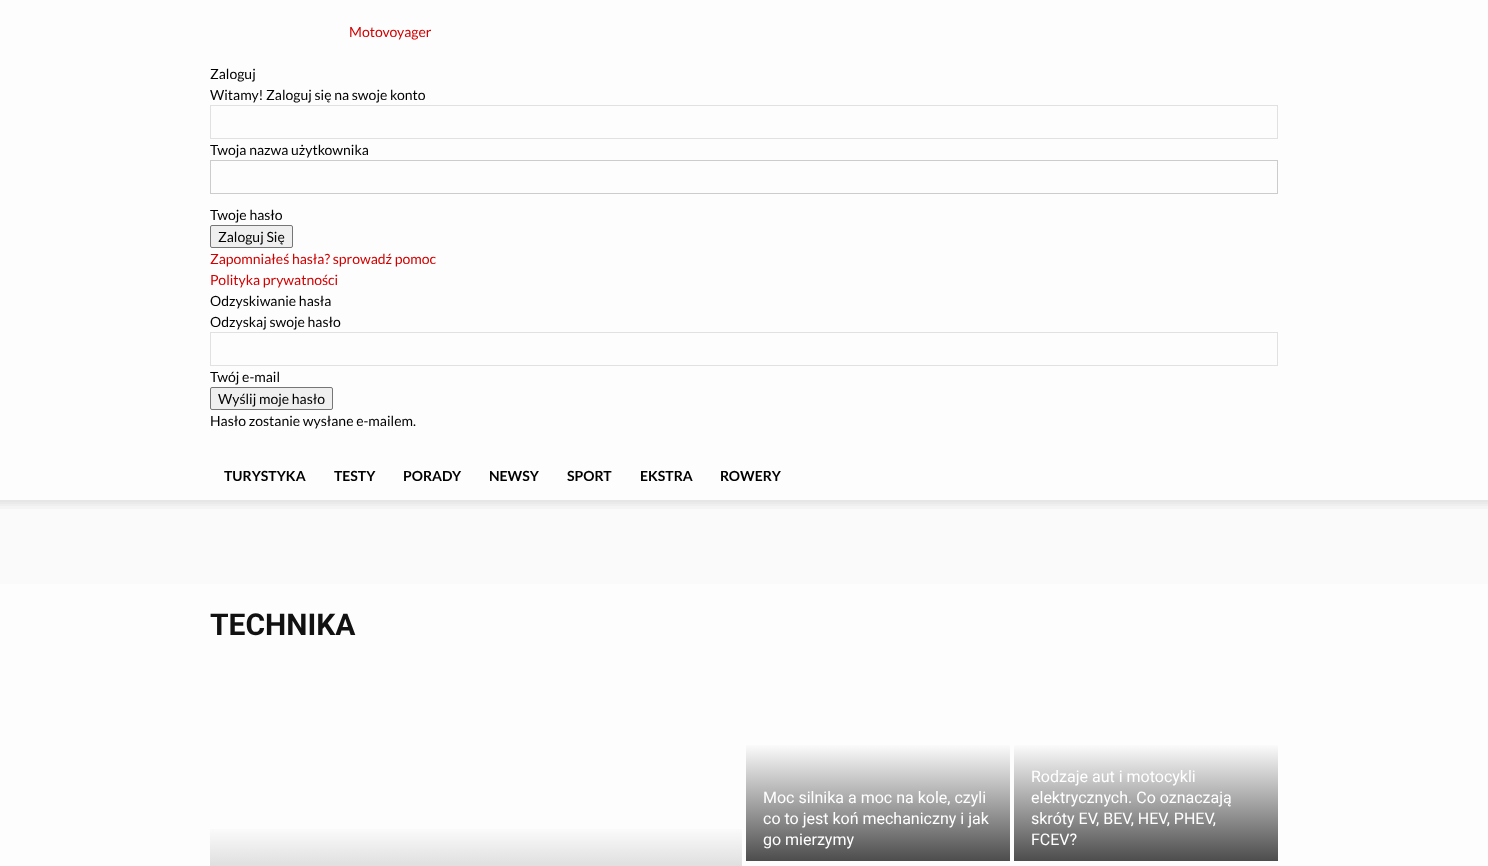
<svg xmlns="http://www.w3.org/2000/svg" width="1488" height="866">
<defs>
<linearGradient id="g1" gradientUnits="userSpaceOnUse" x1="476" y1="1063" x2="476" y2="663"><stop offset="0" stop-color="#4d4d4d"/><stop offset="0.6" stop-color="#fff"/><stop offset="1" stop-color="#fff"/></linearGradient>
<linearGradient id="g2" gradientUnits="userSpaceOnUse" x1="878" y1="861" x2="878" y2="663"><stop offset="0" stop-color="#4d4d4d"/><stop offset="0.6" stop-color="#fff"/><stop offset="1" stop-color="#fff"/></linearGradient>
<linearGradient id="g3" gradientUnits="userSpaceOnUse" x1="1146" y1="861" x2="1146" y2="663"><stop offset="0" stop-color="#4d4d4d"/><stop offset="0.6" stop-color="#fff"/><stop offset="1" stop-color="#fff"/></linearGradient>
</defs>
<rect width="100%" height="100%" fill="#fdfdfd"/>
<text x="349" y="37" style="font-family:Lato;font-size:14px;fill:#d20001">Motovoyager</text>
<text x="210" y="79" style="font-family:Lato;font-size:14px;fill:#000">Zaloguj</text>
<text x="210" y="100" style="font-family:Lato;font-size:14px;fill:#000">Witamy! Zaloguj się na swoje konto</text>
<rect x="210.5" y="105.5" width="1067" height="33" fill="none" stroke="#e1e1e1"/>
<text x="210" y="155" style="font-family:Lato;font-size:14px;fill:#000">Twoja nazwa użytkownika</text>
<rect x="210.5" y="160.5" width="1067" height="33" fill="none" stroke="#ccc"/>
<text x="210" y="220" style="font-family:Lato;font-size:14px;fill:#000">Twoje hasło</text>
<rect x="210.5" y="225.5" width="82" height="22" rx="1.5" fill="#efefef" stroke="#767676"/>
<text x="218" y="242" style="font-family:Lato;font-size:14px;fill:#000">Zaloguj Się</text>
<text x="210" y="264" style="font-family:Lato;font-size:14px;fill:#d20001">Zapomniałeś hasła? sprowadź pomoc</text>
<text x="210" y="285" style="font-family:Lato;font-size:14px;fill:#d20001">Polityka prywatności</text>
<text x="210" y="306" style="font-family:Lato;font-size:14px;fill:#000">Odzyskiwanie hasła</text>
<text x="210" y="327" style="font-family:Lato;font-size:14px;fill:#000">Odzyskaj swoje hasło</text>
<rect x="210.5" y="332.5" width="1067" height="33" fill="none" stroke="#e1e1e1"/>
<text x="210" y="382" style="font-family:Lato;font-size:14px;fill:#000">Twój e-mail</text>
<rect x="210.5" y="387.5" width="122" height="22" rx="1.5" fill="#efefef" stroke="#767676"/>
<text x="218" y="404" style="font-family:Lato;font-size:14px;fill:#000">Wyślij moje hasło</text>
<text x="210" y="426" style="font-family:Lato;font-size:14px;fill:#000">Hasło zostanie wysłane e-mailem.</text>
<text x="224" y="481" style="font-family:Lato;font-size:14px;font-weight:bold;fill:#000">TURYSTYKA</text>
<text x="334" y="481" style="font-family:Lato;font-size:14px;font-weight:bold;fill:#000">TESTY</text>
<text x="403" y="481" style="font-family:Lato;font-size:14px;font-weight:bold;fill:#000">PORADY</text>
<text x="489" y="481" style="font-family:Lato;font-size:14px;font-weight:bold;fill:#000">NEWSY</text>
<text x="567" y="481" style="font-family:Lato;font-size:14px;font-weight:bold;fill:#000">SPORT</text>
<text x="640" y="481" style="font-family:Lato;font-size:14px;font-weight:bold;fill:#000">EKSTRA</text>
<text x="720" y="481" style="font-family:Lato;font-size:14px;font-weight:bold;fill:#000">ROWERY</text>
<rect y="500" width="1488" height="84" fill="#fafafa"/>
<image x="0" y="500" width="1488" height="9" href="media/1.png"/>
<text x="210" y="635" style="font-family:Roboto;font-size:30px;font-weight:bold;fill:#111">TECHNIKA</text>
<rect x="210" y="829" width="532" height="37" fill="url(#g1)"/>
<rect x="746" y="745" width="264" height="116" fill="url(#g2)"/>
<text x="763" y="803" style="font-family:Roboto;font-size:16px;fill:#fff">Moc silnika a moc na kole, czyli</text>
<text x="763" y="824" style="font-family:Roboto;font-size:16px;fill:#fff">co to jest koń mechaniczny i jak</text>
<text x="763" y="845" style="font-family:Roboto;font-size:16px;fill:#fff">go mierzymy</text>
<rect x="1014" y="745" width="264" height="116" fill="url(#g3)"/>
<text x="1031" y="782" style="font-family:Roboto;font-size:16px;fill:#fff">Rodzaje aut i motocykli</text>
<text x="1031" y="803" style="font-family:Roboto;font-size:16px;fill:#fff">elektrycznych. Co oznaczają</text>
<text x="1031" y="824" style="font-family:Roboto;font-size:16px;fill:#fff">skróty EV, BEV, HEV, PHEV,</text>
<text x="1031" y="845" style="font-family:Roboto;font-size:16px;fill:#fff">FCEV?</text>
</svg>
